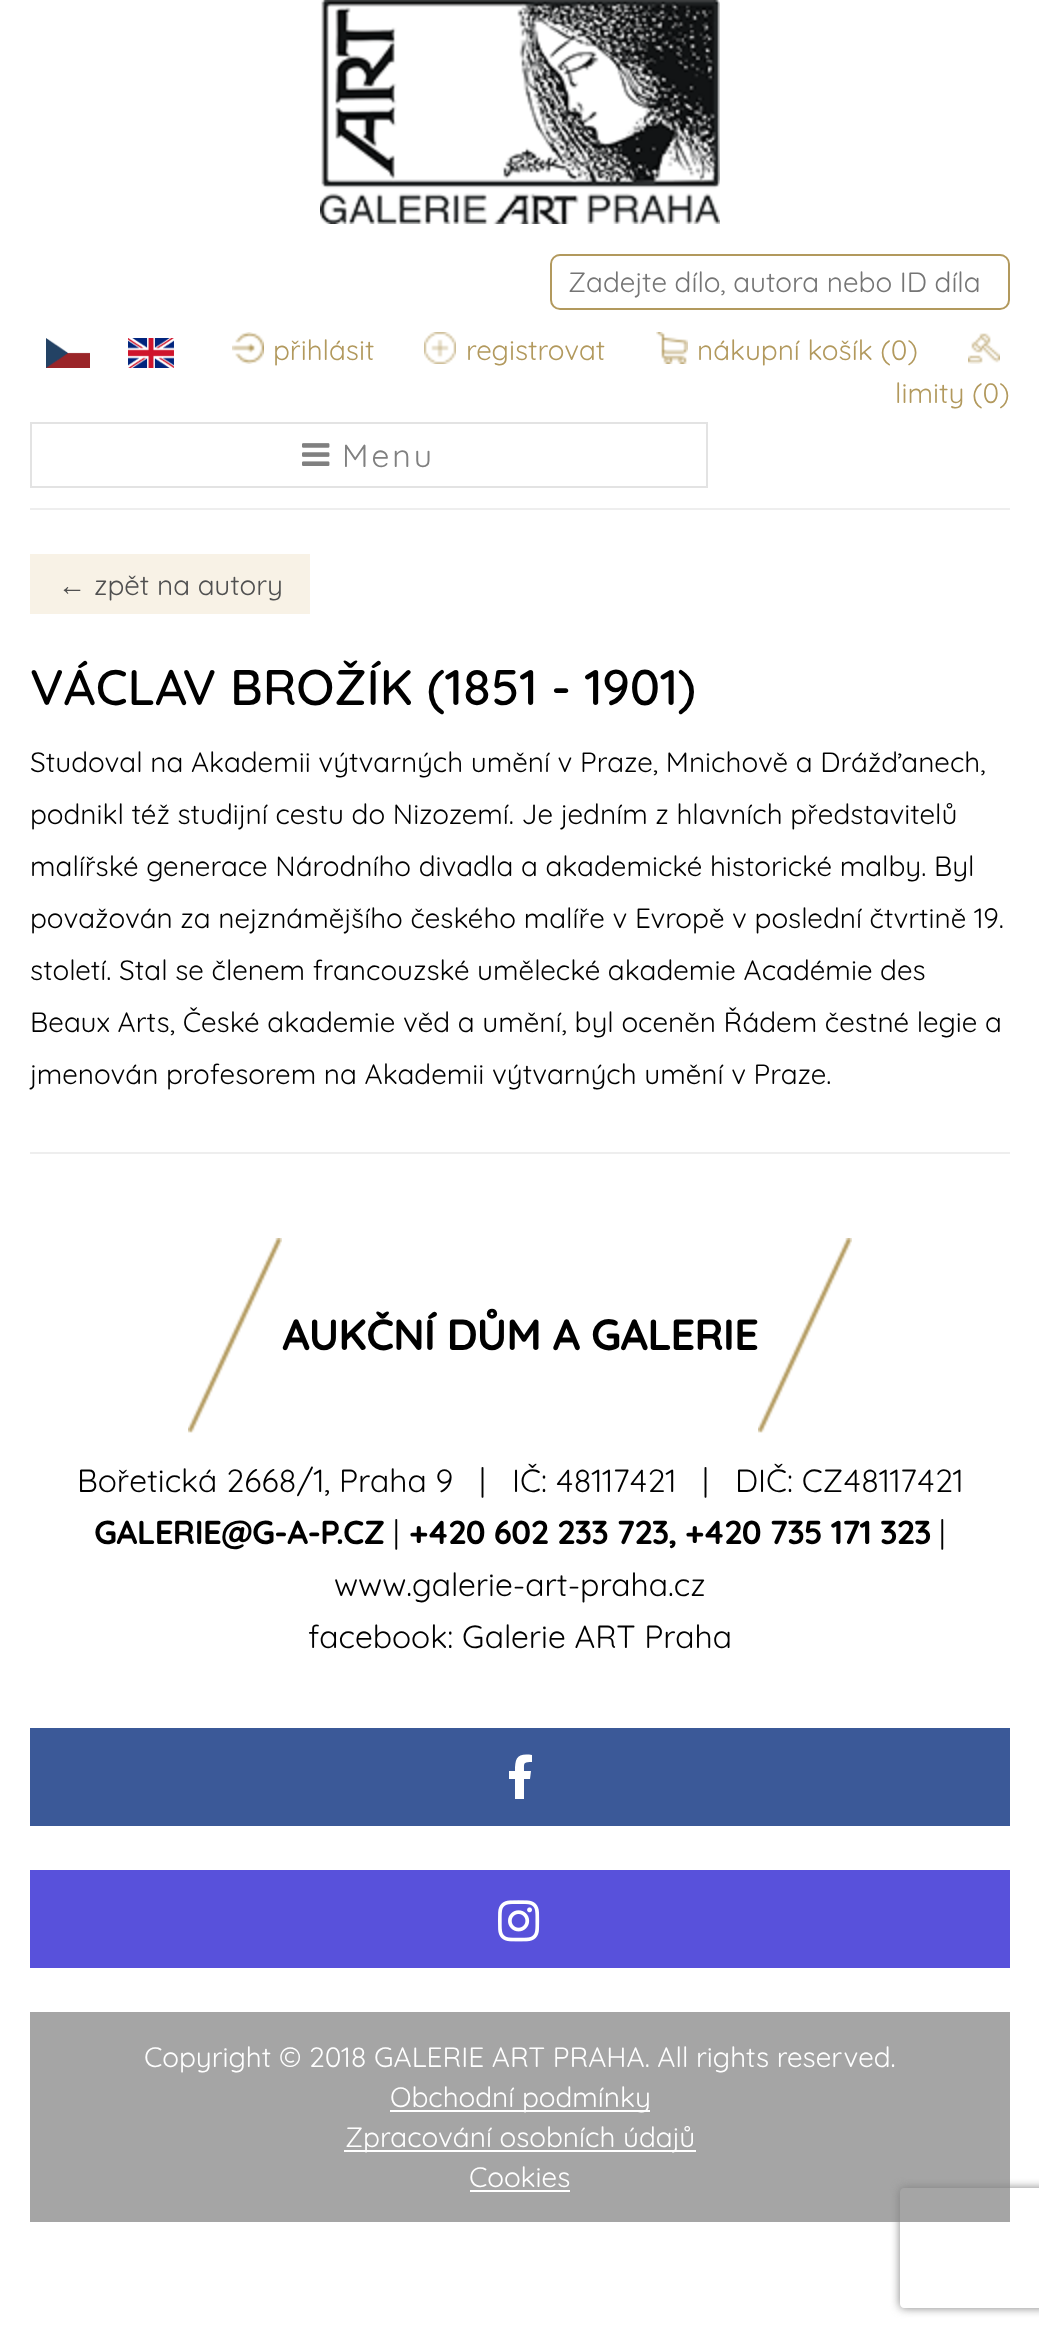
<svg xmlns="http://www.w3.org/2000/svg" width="1039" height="2335">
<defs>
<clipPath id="clip1"><path d="M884 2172h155v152h-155zm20 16h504c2 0 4 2 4 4v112c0 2-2 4-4 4h-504c-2 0-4-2-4-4v-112c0-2 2-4 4-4z" clip-rule="evenodd"/></clipPath>
</defs>
<rect width="100%" height="100%" fill="#fff"/>
<image x="320" y="0" width="400" height="224" href="media/1.png"/>
<rect x="551" y="255" width="458" height="54" rx="9" fill="none" stroke="#b2995d" stroke-width="2"/>
<text x="568" y="292" style="font-family:Quicksand;font-size:28px;fill:#757575">Zadejte dílo, autora nebo ID díla</text>
<image x="46" y="338" width="44" height="30" href="media/2.png"/>
<image x="128" y="338" width="46" height="30" href="media/3.png"/>
<image x="232" y="332" width="32" height="32" href="media/4.png"/>
<text x="273" y="360" style="font-family:Quicksand;font-size:28px;fill:#b2995d">přihlásit</text>
<image x="424" y="332" width="32" height="32" href="media/5.png"/>
<text x="466" y="360" style="font-family:Quicksand;font-size:28px;fill:#b2995d">registrovat</text>
<image x="656" y="332" width="32" height="32" href="media/6.png"/>
<text x="697" y="360" style="font-family:Quicksand;font-size:28px;fill:#b2995d">nákupní košík (0)</text>
<image x="968" y="333" width="32" height="31" href="media/7.png"/>
<text x="895" y="403" style="font-family:Quicksand;font-size:28px;fill:#b2995d">limity (0)</text>
<rect x="31" y="423" width="676" height="64" fill="none" stroke="#e3e3e3" stroke-width="2"/>
<image x="302" y="443" width="28" height="23" href="media/8.png"/>
<text x="342" y="467" style="font-family:Quicksand;font-size:32px;letter-spacing:3px;fill:#808080">Menu</text>
<rect x="30" y="508" width="980" height="2" fill="#eee"/>
<rect x="30" y="554" width="280" height="60" fill="#f8f2e6"/>
<text x="58" y="595" style="font-family:Liberation Sans;font-size:28px;fill:#505050">←</text>
<text x="94" y="595" style="font-family:Quicksand;font-size:28px;fill:#505050">zpět na autory</text>
<text x="30" y="705" style="font-family:Quicksand;font-size:50px;font-weight:500;fill:#000">VÁCLAV BROŽÍK (1851 - 1901)</text>
<text x="30" y="772" style="font-family:Quicksand;font-size:28px;fill:#000">Studoval na Akademii výtvarných umění v Praze, Mnichově a Drážďanech,</text>
<text x="30" y="824" style="font-family:Quicksand;font-size:28px;fill:#000">podnikl též studijní cestu do Nizozemí. Je jedním z hlavních představitelů</text>
<text x="30" y="876" style="font-family:Quicksand;font-size:28px;fill:#000">malířské generace Národního divadla a akademické historické malby. Byl</text>
<text x="30" y="928" style="font-family:Quicksand;font-size:28px;fill:#000">považován za nejznámějšího českého malíře v Evropě v poslední čtvrtině 19.</text>
<text x="30" y="980" style="font-family:Quicksand;font-size:28px;fill:#000">století. Stal se členem francouzské umělecké akademie Académie des</text>
<text x="30" y="1032" style="font-family:Quicksand;font-size:28px;fill:#000">Beaux Arts, České akademie věd a umění, byl oceněn Řádem čestné legie a</text>
<text x="30" y="1084" style="font-family:Quicksand;font-size:28px;fill:#000">jmenován profesorem na Akademii výtvarných umění v Praze.</text>
<rect x="30" y="1152" width="980" height="2" fill="#eee"/>
<image x="188" y="1238" width="94" height="195" href="media/9.png"/>
<text x="282" y="1350" style="font-family:Quicksand;font-size:42px;font-weight:bold;fill:#000">AUKČNÍ DŮM A GALERIE</text>
<image x="758" y="1238" width="94" height="195" href="media/9.png"/>
<text x="77" y="1492" style="font-family:Quicksand;font-size:32px;fill:#000" xml:space="preserve">Bořetická 2668/1, Praha 9   |   IČ: 48117421   |   DIČ: CZ48117421</text>
<text x="94" y="1544" style="font-family:Quicksand;font-size:32px;font-weight:bold;fill:#000">GALERIE@G-A-P.CZ</text>
<text x="393" y="1544" style="font-family:Quicksand;font-size:32px;fill:#000">|</text>
<text x="409" y="1544" style="font-family:Quicksand;font-size:32px;font-weight:bold;fill:#000">+420 602 233 723, +420 735 171 323</text>
<text x="939" y="1544" style="font-family:Quicksand;font-size:32px;fill:#000">|</text>
<text x="334" y="1596" style="font-family:Quicksand;font-size:32px;fill:#000">www.galerie-art-praha.cz</text>
<text x="308" y="1648" style="font-family:Quicksand;font-size:32px;fill:#000">facebook: Galerie ART Praha</text>
<rect x="30" y="1728" width="980" height="98" fill="#3b5998"/>
<path d="M532 1755v7c-9 0-8 1-8 9h7l-1 8h-6v20h-9v-20h-6v-8h6c0-13 2-18 17-16z" fill="#fff"/>
<rect x="30" y="1870" width="980" height="98" fill="#5851db"/>
<image x="498" y="1900" width="42" height="42" href="media/10.png"/>
<rect x="30" y="2012" width="980" height="210" fill="#a5a5a5"/>
<text x="144" y="2067" style="font-family:Quicksand;font-size:28px;fill:#fff">Copyright © 2018 GALERIE ART PRAHA. All rights reserved.</text>
<rect x="390" y="2110" width="260" height="2" fill="#fff"/>
<text x="390" y="2107" style="font-family:Quicksand;font-size:28px;fill:#fff">Obchodní podmínky</text>
<rect x="344" y="2150" width="352" height="2" fill="#fff"/>
<text x="345" y="2147" style="font-family:Quicksand;font-size:28px;fill:#fff">Zpracování osobních údajů</text>
<text x="469" y="2187" style="font-family:Quicksand;font-size:28px;fill:#fff">Cookies</text>
<rect x="470" y="2190" width="100" height="2" fill="#fff"/>
<g clip-path="url(#clip1)">
<rect x="900" y="2188" width="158" height="120" rx="4" fill="#808080" filter="blur(5px)"/>
</g>
</svg>
